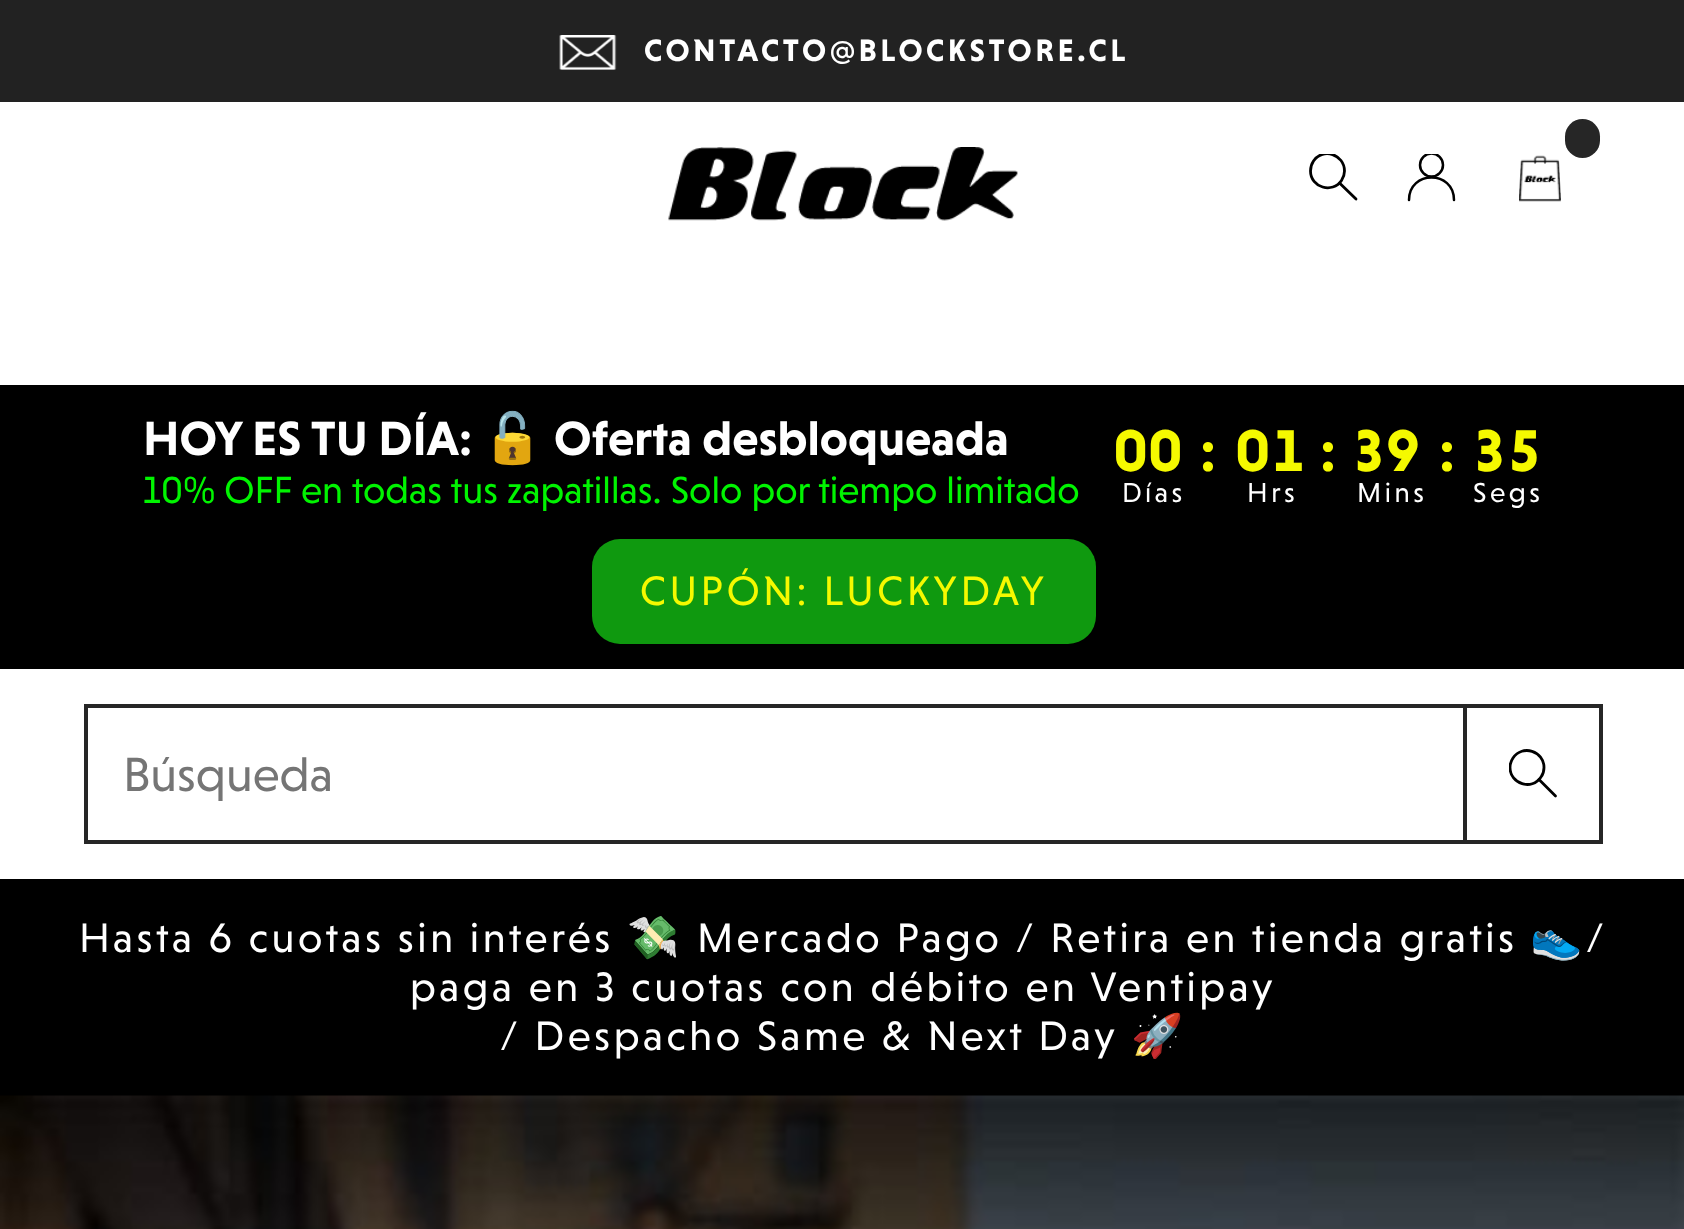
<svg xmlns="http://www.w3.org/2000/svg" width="1684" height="1229">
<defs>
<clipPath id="clip1"><rect x="1509" y="749" width="49" height="49"/></clipPath>
<clipPath id="clip2"><rect x="1309" y="154" width="49" height="49"/></clipPath>
<clipPath id="clip3"><rect x="1407" y="154" width="49" height="49"/></clipPath>
</defs>
<rect width="100%" height="100%" fill="#fff"/>
<rect width="1684" height="102" fill="#222"/>
<image x="559" y="35" width="58" height="35" href="media/1.png"/>
<text x="644" y="61" style="font-family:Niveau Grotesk;font-size:31.5px;font-weight:bold;letter-spacing:3.5px;fill:#fff">CONTACTO@BLOCKSTORE.CL</text>
<rect x="86" y="706" width="1515" height="136" fill="none" stroke="#262626" stroke-width="4"/>
<text x="123" y="791" style="font-family:Niveau Grotesk;font-size:49px;fill:#757575">Búsqueda</text>
<g clip-path="url(#clip1)">
<path d="M1544 767.5c0 3.5-1 7-3 9.5c-9 14-31 7-31-9.5c0-3.5 1-6.5 3-9.5c9.5-14 31-7 31 9.5z" fill="none" stroke="#000" stroke-width="2.8"/>
</g>
<path d="M1555.5 796l-16.5-16.5" fill="none" stroke="#000" stroke-width="2.8" stroke-linecap="round" stroke-linejoin="round"/>
<rect x="1465" y="706" width="136" height="136" fill="none" stroke="#262626" stroke-width="4"/>
<image x="668" y="147" width="350" height="74" href="media/2.png"/>
<g clip-path="url(#clip2)">
<path d="M1344.5 171c0 3-1 6.5-3 9.5c-9 13.5-31 7-31-9.5c0-3.5 1-7 3-10c9.5-14 31-6.5 31 10z" fill="none" stroke="#000" stroke-width="2.8"/>
</g>
<path d="M1356 199l-16.5-16" fill="none" stroke="#000" stroke-width="2.8" stroke-linecap="round" stroke-linejoin="round"/>
<g clip-path="url(#clip3)">
<circle cx="1431.5" cy="165" r="11.5" fill="none" stroke="#000" stroke-width="2.5"/>
</g>
<path d="M1409 200c0-30 45-30 45 0" fill="none" stroke="#000" stroke-width="2.5" stroke-linecap="round" stroke-linejoin="round"/>
<rect x="1565" y="119" width="35" height="39" rx="17.5" fill="#262626"/>
<image x="1519" y="155" width="42" height="47" href="media/3.png"/>
<rect y="385" width="1684" height="284" fill="#000"/>
<text x="143" y="455" style="font-family:Niveau Grotesk;font-size:49px;font-weight:bold;fill:#fff">HOY ES TU DÍA:</text>
<text x="482" y="455" style="font-family:Noto Color Emoji;font-size:49px;font-weight:bold;fill:#fff">🔓</text>
<text x="554" y="455" style="font-family:Niveau Grotesk;font-size:49px;font-weight:bold;fill:#fff">Oferta desbloqueada</text>
<text x="143" y="503" style="font-family:Niveau Grotesk;font-size:38.5px;fill:#00f400">10% OFF en todas tus zapatillas. Solo por tiempo limitado</text>
<text x="1115" y="471" style="font-family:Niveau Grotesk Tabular;font-size:60px;font-weight:bold;letter-spacing:3.5px;fill:#f5f900">00</text>
<text x="1200" y="471" style="font-family:Niveau Grotesk;font-size:60px;font-weight:bold;letter-spacing:3.5px;fill:#f5f900">:</text>
<text x="1235" y="471" style="font-family:Niveau Grotesk;font-size:60px;font-weight:bold;letter-spacing:3.5px;fill:#f5f900">01</text>
<text x="1320" y="471" style="font-family:Niveau Grotesk;font-size:60px;font-weight:bold;letter-spacing:3.5px;fill:#f5f900">:</text>
<text x="1355" y="471" style="font-family:Niveau Grotesk;font-size:60px;font-weight:bold;letter-spacing:3.5px;fill:#f5f900">39</text>
<text x="1439" y="471" style="font-family:Niveau Grotesk;font-size:60px;font-weight:bold;letter-spacing:3.5px;fill:#f5f900">:</text>
<text x="1474" y="471" style="font-family:Niveau Grotesk Tabular;font-size:60px;font-weight:bold;letter-spacing:3.5px;fill:#f5f900">35</text>
<text x="1122" y="502" style="font-family:Niveau Grotesk;font-size:28px;letter-spacing:3.5px;fill:#fff">Días</text>
<text x="1247" y="502" style="font-family:Niveau Grotesk;font-size:28px;letter-spacing:3.5px;fill:#fff">Hrs</text>
<text x="1357" y="502" style="font-family:Niveau Grotesk;font-size:28px;letter-spacing:3.5px;fill:#fff">Mins</text>
<text x="1473" y="502" style="font-family:Niveau Grotesk;font-size:28px;letter-spacing:3.5px;fill:#fff">Segs</text>
<rect x="592" y="539" width="504" height="105" rx="28" fill="#0f990f"/>
<text x="640" y="605" style="font-family:Niveau Grotesk;font-size:42px;letter-spacing:3.5px;fill:#f5f900">CUPÓN: LUCKYDAY</text>
<rect y="879" width="1684" height="217" fill="#000"/>
<text x="79" y="952" style="font-family:Niveau Grotesk;font-size:42px;letter-spacing:3.5px;fill:#fff">Hasta 6 cuotas sin interés</text>
<text x="627" y="952" style="font-family:Noto Color Emoji;font-size:42px;letter-spacing:3.5px;fill:#fff">💸</text>
<text x="697" y="952" style="font-family:Niveau Grotesk;font-size:42px;letter-spacing:3.5px;fill:#fff">Mercado Pago / Retira en tienda gratis</text>
<text x="1530" y="952" style="font-family:Noto Color Emoji;font-size:42px;letter-spacing:3.5px;fill:#fff">👟</text>
<text x="1586" y="952" style="font-family:Niveau Grotesk;font-size:42px;letter-spacing:3.5px;fill:#fff">/</text>
<text x="410" y="1001" style="font-family:Niveau Grotesk;font-size:42px;letter-spacing:3.5px;fill:#fff">paga en 3 cuotas con débito en Ventipay</text>
<text x="500" y="1050" style="font-family:Niveau Grotesk;font-size:42px;letter-spacing:3.5px;fill:#fff">/ Despacho Same &amp; Next Day</text>
<text x="1131" y="1050" style="font-family:Noto Color Emoji;font-size:42px;letter-spacing:3.5px;fill:#fff">🚀</text>
<image x="0" y="1095" width="1684" height="134" href="media/4.png"/>
</svg>
